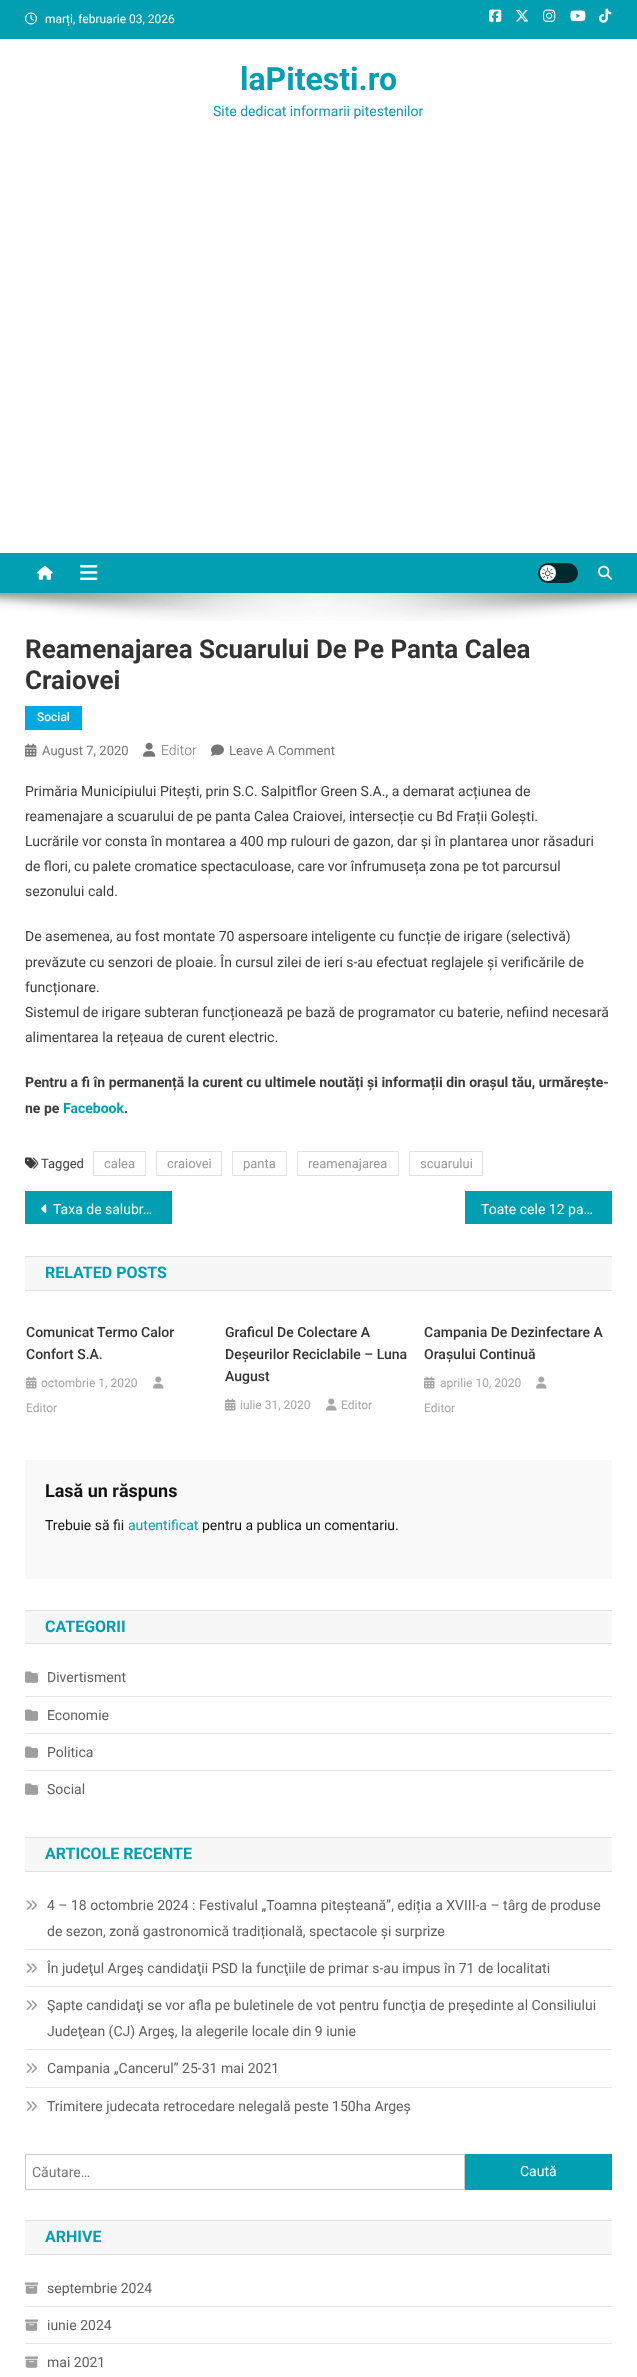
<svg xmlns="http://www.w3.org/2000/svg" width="637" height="2377">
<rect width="100%" height="100%" fill="#fff"/>
<rect width="637" height="39" fill="#029fb2"/>
<image x="25" y="12" width="12" height="13" href="media/1.png"/>
<text x="45" y="23" style="font-family:Roboto;font-size:12px;fill:#fff">marți, februarie 03, 2026</text>
<image x="489" y="9" width="13" height="13" href="media/2.png"/>
<image x="515" y="10" width="14" height="12" href="media/3.png"/>
<image x="543" y="9" width="13" height="13" href="media/4.png"/>
<image x="570" y="10" width="16" height="11" href="media/5.png"/>
<image x="599" y="8" width="13" height="15" href="media/6.png"/>
<text x="240" y="90" style="font-family:Roboto;font-size:32px;font-weight:bold;fill:#029fb2">laPitesti.ro</text>
<text x="213" y="116" style="font-family:Roboto;font-size:14px;fill:#029fb2">Site dedicat informarii pitestenilor</text>
<rect y="553" width="637" height="40" fill="#029fb2"/>
<image x="37" y="565" width="16" height="15" href="media/7.png"/>
<image x="80" y="565" width="18" height="15" href="media/8.png"/>
<rect x="538" y="563" width="40" height="20" rx="10" fill="#01282d"/>
<circle cx="548" cy="573" r="8" fill="#fff"/>
<image x="542" y="567" width="12" height="12" href="media/9.png"/>
<image x="598" y="565" width="14" height="15" href="media/10.png"/>
<image x="0" y="593" width="637" height="28" href="media/11.png"/>
<text x="25" y="658" style="font-family:Roboto;font-size:26px;font-weight:bold;fill:#333">Reamenajarea Scuarului De Pe Panta Calea</text>
<text x="25" y="689" style="font-family:Roboto;font-size:26px;font-weight:bold;fill:#333">Craiovei</text>
<rect x="25" y="706" width="57" height="24" fill="#00a9e0"/>
<text x="37" y="721" style="font-family:Roboto;font-size:12px;font-weight:500;fill:#fff">Social</text>
<image x="25" y="743" width="12" height="14" href="media/12.png"/>
<text x="42" y="755" style="font-family:Roboto;font-size:13px;fill:#767676">August 7, 2020</text>
<image x="143" y="742" width="13" height="15" href="media/13.png"/>
<text x="161" y="755" style="font-family:Roboto;font-size:14px;font-weight:300;fill:#767676">Editor</text>
<image x="211" y="744" width="13" height="12" href="media/14.png"/>
<text x="229" y="755" style="font-family:Roboto;font-size:13px;fill:#767676">Leave A Comment</text>
<text x="25" y="796" style="font-family:Roboto;font-size:14px;fill:#3d3d3d">Primăria Municipiului Pitești, prin S.C. Salpitflor Green S.A., a demarat acțiunea de</text>
<text x="25" y="821" style="font-family:Roboto;font-size:14px;fill:#3d3d3d">reamenajare a scuarului de pe panta Calea Craiovei, intersecție cu Bd Frații Golești.</text>
<text x="25" y="846" style="font-family:Roboto;font-size:14px;fill:#3d3d3d">Lucrările vor consta în montarea a 400 mp rulouri de gazon, dar și în plantarea unor răsaduri</text>
<text x="25" y="871" style="font-family:Roboto;font-size:14px;fill:#3d3d3d">de flori, cu palete cromatice spectaculoase, care vor înfrumuseța zona pe tot parcursul</text>
<text x="25" y="896" style="font-family:Roboto;font-size:14px;fill:#3d3d3d">sezonului cald.</text>
<text x="25" y="941" style="font-family:Roboto;font-size:14px;fill:#3d3d3d">De asemenea, au fost montate 70 aspersoare inteligente cu funcție de irigare (selectivă)</text>
<text x="25" y="967" style="font-family:Roboto;font-size:14px;fill:#3d3d3d">prevăzute cu senzori de ploaie. În cursul zilei de ieri s-au efectuat reglajele și verificările de</text>
<text x="25" y="992" style="font-family:Roboto;font-size:14px;fill:#3d3d3d">funcționare.</text>
<text x="25" y="1017" style="font-family:Roboto;font-size:14px;fill:#3d3d3d">Sistemul de irigare subteran funcționează pe bază de programator cu baterie, nefiind necesară</text>
<text x="25" y="1042" style="font-family:Roboto;font-size:14px;fill:#3d3d3d">alimentarea la rețeaua de curent electric.</text>
<text x="25" y="1087" style="font-family:Roboto;font-size:14px;font-weight:bold;fill:#3d3d3d">Pentru a fi în permanență la curent cu ultimele noutăți și informații din orașul tău, urmărește-</text>
<text x="25" y="1113" style="font-family:Roboto;font-size:14px;font-weight:bold;fill:#3d3d3d">ne pe</text>
<text x="63" y="1113" style="font-family:Roboto;font-size:14px;font-weight:bold;fill:#029fb2">Facebook</text>
<text x="124" y="1113" style="font-family:Roboto;font-size:14px;font-weight:bold;fill:#3d3d3d">.</text>
<image x="25" y="1157" width="13" height="12" href="media/15.png"/>
<text x="41" y="1168" style="font-family:Roboto;font-size:13px;fill:#3d3d3d">Tagged</text>
<rect x="93.5" y="1151.5" width="52" height="24" fill="none" stroke="#e1e1e1"/>
<text x="104" y="1168" style="font-family:Roboto;font-size:13px;fill:#999">calea</text>
<rect x="156.5" y="1151.5" width="65" height="24" fill="none" stroke="#e1e1e1"/>
<text x="167" y="1168" style="font-family:Roboto;font-size:13px;fill:#999">craiovei</text>
<rect x="232.5" y="1151.5" width="54" height="24" fill="none" stroke="#e1e1e1"/>
<text x="243" y="1168" style="font-family:Roboto;font-size:13px;fill:#999">panta</text>
<rect x="297.5" y="1151.5" width="101" height="24" fill="none" stroke="#e1e1e1"/>
<text x="308" y="1168" style="font-family:Roboto;font-size:13px;fill:#999">reamenajarea</text>
<rect x="409.5" y="1151.5" width="73" height="24" fill="none" stroke="#e1e1e1"/>
<text x="420" y="1168" style="font-family:Roboto;font-size:13px;fill:#999">scuarului</text>
<rect x="25" y="1191" width="147" height="33" fill="#029fb2"/>
<image x="41" y="1204" width="6" height="10" href="media/16.png"/>
<text x="53" y="1214" style="font-family:Roboto;font-size:14px;fill:#fff">Taxa de salubr…</text>
<rect x="465" y="1191" width="147" height="33" fill="#029fb2"/>
<text x="481" y="1214" style="font-family:Roboto;font-size:14px;fill:#fff">Toate cele 12 pa…</text>
<rect x="25" y="1257" width="587" height="33" fill="#f7f7f7"/>
<rect x="25" y="1256" width="587" height="1" fill="#e1e1e1"/>
<rect x="25" y="1290" width="587" height="1" fill="#e1e1e1"/>
<text x="45" y="1278" style="font-family:Roboto;font-size:16px;font-weight:bold;fill:#029fb2">RELATED POSTS</text>
<text x="26" y="1337" style="font-family:Roboto;font-size:14px;font-weight:500;fill:#333">Comunicat Termo Calor</text>
<text x="26" y="1359" style="font-family:Roboto;font-size:14px;font-weight:500;fill:#333">Confort S.A.</text>
<image x="26" y="1376" width="11" height="13" href="media/17.png"/>
<text x="41" y="1387" style="font-family:Roboto;font-size:12px;fill:#a6a6a6">octombrie 1, 2020</text>
<image x="153" y="1376" width="11" height="13" href="media/18.png"/>
<text x="26" y="1412" style="font-family:Roboto;font-size:12px;fill:#a6a6a6">Editor</text>
<text x="225" y="1337" style="font-family:Roboto;font-size:14px;font-weight:500;fill:#333">Graficul De Colectare A</text>
<text x="225" y="1359" style="font-family:Roboto;font-size:14px;font-weight:500;fill:#333">Deșeurilor Reciclabile – Luna</text>
<text x="225" y="1381" style="font-family:Roboto;font-size:14px;font-weight:500;fill:#333">August</text>
<image x="225" y="1398" width="11" height="13" href="media/17.png"/>
<text x="240" y="1409" style="font-family:Roboto;font-size:12px;fill:#a6a6a6">iulie 31, 2020</text>
<image x="326" y="1398" width="11" height="13" href="media/18.png"/>
<text x="341" y="1409" style="font-family:Roboto;font-size:12px;fill:#a6a6a6">Editor</text>
<text x="424" y="1337" style="font-family:Roboto;font-size:14px;font-weight:500;fill:#333">Campania De Dezinfectare A</text>
<text x="424" y="1359" style="font-family:Roboto;font-size:14px;font-weight:500;fill:#333">Orașului Continuă</text>
<image x="424" y="1376" width="11" height="13" href="media/17.png"/>
<text x="440" y="1387" style="font-family:Roboto;font-size:12px;fill:#a6a6a6">aprilie 10, 2020</text>
<image x="536" y="1376" width="11" height="13" href="media/18.png"/>
<text x="424" y="1412" style="font-family:Roboto;font-size:12px;fill:#a6a6a6">Editor</text>
<rect x="25" y="1460" width="587" height="119" fill="#f9f9f9"/>
<text x="45" y="1497" style="font-family:Roboto;font-size:18px;font-weight:bold;fill:#141414">Lasă un răspuns</text>
<text x="45" y="1530" style="font-family:Roboto;font-size:14px;fill:#141414">Trebuie să fii</text>
<text x="128" y="1530" style="font-family:Roboto;font-size:14px;fill:#029fb2">autentificat</text>
<text x="202" y="1530" style="font-family:Roboto;font-size:14px;fill:#141414">pentru a publica un comentariu.</text>
<rect x="25" y="1611" width="587" height="32" fill="#f7f7f7"/>
<rect x="25" y="1610" width="587" height="1" fill="#e1e1e1"/>
<rect x="25" y="1643" width="587" height="1" fill="#e1e1e1"/>
<text x="45" y="1632" style="font-family:Roboto;font-size:16px;font-weight:bold;fill:#029fb2">CATEGORII</text>
<rect x="25" y="1696" width="587" height="1" fill="#e6e6e6"/>
<image x="25" y="1671" width="13" height="12" href="media/19.png"/>
<text x="47" y="1682" style="font-family:Roboto;font-size:14px;fill:#5f5f5f">Divertisment</text>
<rect x="25" y="1733" width="587" height="1" fill="#e6e6e6"/>
<image x="25" y="1709" width="13" height="12" href="media/19.png"/>
<text x="47" y="1720" style="font-family:Roboto;font-size:14px;fill:#5f5f5f">Economie</text>
<rect x="25" y="1770" width="587" height="1" fill="#e6e6e6"/>
<image x="25" y="1746" width="13" height="12" href="media/19.png"/>
<text x="47" y="1757" style="font-family:Roboto;font-size:14px;fill:#5f5f5f">Politica</text>
<image x="25" y="1783" width="13" height="12" href="media/19.png"/>
<text x="47" y="1794" style="font-family:Roboto;font-size:14px;fill:#5f5f5f">Social</text>
<rect x="25" y="1838" width="587" height="33" fill="#f7f7f7"/>
<rect x="25" y="1837" width="587" height="1" fill="#e1e1e1"/>
<rect x="25" y="1871" width="587" height="1" fill="#e1e1e1"/>
<text x="45" y="1859" style="font-family:Roboto;font-size:16px;font-weight:bold;fill:#029fb2">ARTICOLE RECENTE</text>
<rect x="25" y="1949" width="587" height="1" fill="#e6e6e6"/>
<image x="26" y="1900" width="12" height="10" href="media/20.png"/>
<text x="47" y="1910" style="font-family:Roboto;font-size:14px;fill:#5f5f5f">4 – 18 octombrie 2024 : Festivalul „Toamna piteșteană”, ediția a XVIII-a – târg de produse</text>
<text x="47" y="1936" style="font-family:Roboto;font-size:14px;fill:#5f5f5f">de sezon, zonă gastronomică tradițională, spectacole și surprize</text>
<rect x="25" y="1986" width="587" height="1" fill="#e6e6e6"/>
<image x="26" y="1963" width="12" height="10" href="media/20.png"/>
<text x="47" y="1973" style="font-family:Roboto;font-size:14px;fill:#5f5f5f">În judeţul Argeş candidaţii PSD la funcţiile de primar s-au impus în 71 de localitati</text>
<rect x="25" y="2049" width="587" height="1" fill="#e6e6e6"/>
<image x="26" y="2000" width="12" height="10" href="media/20.png"/>
<text x="47" y="2010" style="font-family:Roboto;font-size:14px;fill:#5f5f5f">Şapte candidaţi se vor afla pe buletinele de vot pentru funcţia de preşedinte al Consiliului</text>
<text x="47" y="2036" style="font-family:Roboto;font-size:14px;fill:#5f5f5f">Judeţean (CJ) Argeş, la alegerile locale din 9 iunie</text>
<rect x="25" y="2087" width="587" height="1" fill="#e6e6e6"/>
<image x="26" y="2063" width="12" height="10" href="media/20.png"/>
<text x="47" y="2073" style="font-family:Roboto;font-size:14px;fill:#5f5f5f">Campania „Cancerul” 25-31 mai 2021</text>
<image x="26" y="2101" width="12" height="10" href="media/20.png"/>
<text x="47" y="2111" style="font-family:Roboto;font-size:14px;fill:#5f5f5f">Trimitere judecata retrocedare nelegală peste 150ha Argeș</text>
<rect x="25.5" y="2154.5" width="439" height="35" fill="none" stroke="#ccc"/>
<text x="32" y="2177" style="font-family:Roboto;font-size:14px;fill:#767676">Căutare…</text>
<rect x="465" y="2154" width="147" height="36" fill="#029fb2"/>
<text x="520" y="2176" style="font-family:Roboto;font-size:14px;fill:#fff">Caută</text>
<rect x="25" y="2221" width="587" height="33" fill="#f7f7f7"/>
<rect x="25" y="2220" width="587" height="1" fill="#e1e1e1"/>
<rect x="25" y="2254" width="587" height="1" fill="#e1e1e1"/>
<text x="45" y="2242" style="font-family:Roboto;font-size:16px;font-weight:bold;fill:#029fb2">ARHIVE</text>
<rect x="25" y="2306" width="587" height="1" fill="#e6e6e6"/>
<image x="25" y="2282" width="13" height="12" href="media/21.png"/>
<text x="47" y="2293" style="font-family:Roboto;font-size:14px;fill:#5f5f5f">septembrie 2024</text>
<rect x="25" y="2343" width="587" height="1" fill="#e6e6e6"/>
<image x="25" y="2319" width="13" height="12" href="media/21.png"/>
<text x="47" y="2330" style="font-family:Roboto;font-size:14px;fill:#5f5f5f">iunie 2024</text>
<image x="25" y="2356" width="13" height="12" href="media/21.png"/>
<text x="47" y="2367" style="font-family:Roboto;font-size:14px;fill:#5f5f5f">mai 2021</text>
</svg>
